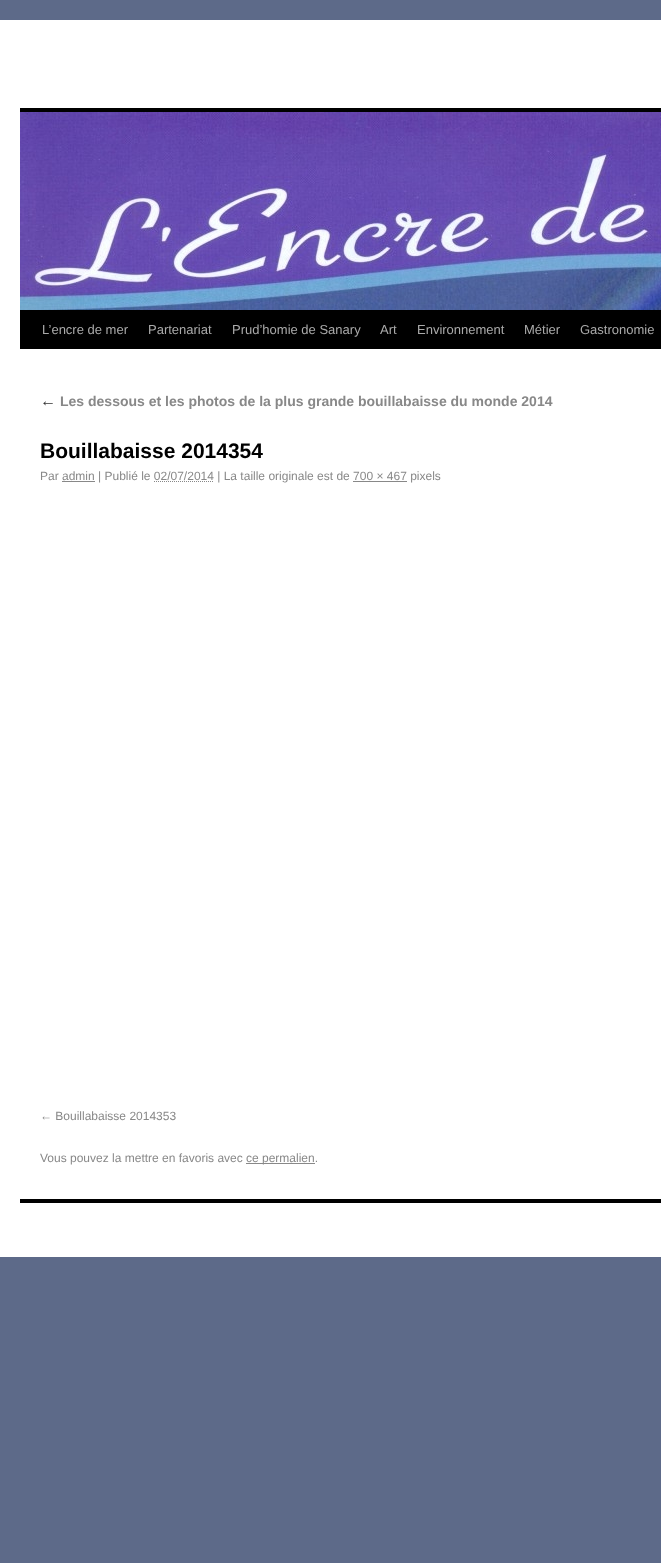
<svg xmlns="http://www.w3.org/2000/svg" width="661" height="1563">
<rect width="100%" height="100%" fill="#5d6a89"/>
<rect y="20" width="661" height="1237" fill="#fff"/>
<rect x="20" y="108" width="641" height="4" fill="#000"/>
<rect x="20" y="310" width="641" height="39" fill="#000"/>
<image x="20" y="112" width="641" height="198" href="media/1.png"/>
<text x="42" y="334" style="font-family:Liberation Sans;font-size:13px;fill:#aaa">L’encre de mer</text>
<text x="148" y="334" style="font-family:Liberation Sans;font-size:13px;fill:#aaa">Partenariat</text>
<text x="232" y="334" style="font-family:Liberation Sans;font-size:13px;fill:#aaa">Prud’homie de Sanary</text>
<text x="380" y="334" style="font-family:Liberation Sans;font-size:13px;fill:#aaa">Art</text>
<text x="417" y="334" style="font-family:Liberation Sans;font-size:13px;fill:#aaa">Environnement</text>
<text x="524" y="334" style="font-family:Liberation Sans;font-size:13px;fill:#aaa">Métier</text>
<text x="580" y="334" style="font-family:Liberation Sans;font-size:13px;fill:#aaa">Gastronomie</text>
<text x="40" y="406" style="font-family:Liberation Serif;font-size:16px;font-style:italic;fill:#333">←</text>
<text x="60" y="406" style="font-family:Liberation Sans;font-size:14px;font-weight:bold;fill:#888">Les dessous et les photos de la plus grande bouillabaisse du monde 2014</text>
<text x="40" y="458" style="font-family:Liberation Sans;font-size:21px;font-weight:bold;fill:#000">Bouillabaisse 2014354</text>
<text x="40" y="480" style="font-family:Liberation Sans;font-size:12px;fill:#888">Par admin | Publié le 02/07/2014 | La taille originale est de 700 × 467 pixels</text>
<rect x="62" y="481" width="33" height="1" fill="#888"/>
<path d="M154 481.5h60" fill="none" stroke="#888" stroke-dasharray="1 1"/>
<rect x="353" y="481" width="54" height="1" fill="#888"/>
<text x="40" y="1120" style="font-family:Liberation Sans;font-size:12px;fill:#888">← Bouillabaisse 2014353</text>
<text x="40" y="1162" style="font-family:Liberation Sans;font-size:12px;fill:#888">Vous pouvez la mettre en favoris avec</text>
<rect x="246" y="1163" width="69" height="1" fill="#888"/>
<text x="246" y="1162" style="font-family:Liberation Sans;font-size:12px;fill:#888">ce permalien.</text>
<rect x="20" y="1199" width="641" height="4" fill="#000"/>
</svg>
